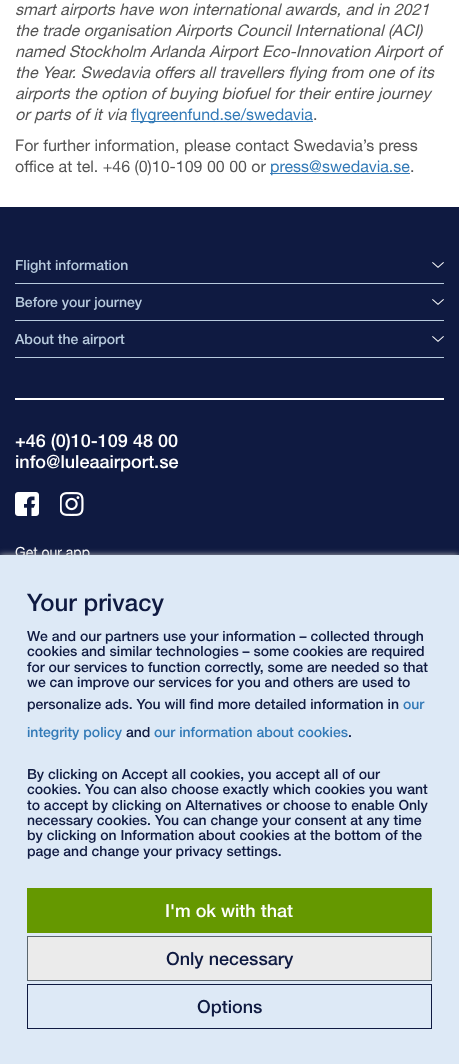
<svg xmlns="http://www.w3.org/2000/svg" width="459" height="1064">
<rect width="100%" height="100%" fill="#fff"/>
<text x="15" y="15" style="font-family:Helvetica Neue;font-size:16px;font-style:italic;fill:#545454">smart airports have won international awards, and in 2021</text>
<text x="15" y="36" style="font-family:Helvetica Neue;font-size:16px;font-style:italic;fill:#545454">the trade organisation Airports Council International (ACI)</text>
<text x="15" y="57" style="font-family:Helvetica Neue;font-size:16px;font-style:italic;fill:#545454">named Stockholm Arlanda Airport Eco-Innovation Airport of</text>
<text x="15" y="78" style="font-family:Helvetica Neue;font-size:16px;font-style:italic;fill:#545454">the Year. Swedavia offers all travellers flying from one of its</text>
<text x="15" y="99" style="font-family:Helvetica Neue;font-size:16px;font-style:italic;fill:#545454">airports the option of buying biofuel for their entire journey</text>
<text x="15" y="120" style="font-family:Helvetica Neue;font-size:16px;font-style:italic;fill:#545454">or parts of it via</text>
<rect x="131" y="121" width="182" height="1" fill="#337ab7"/>
<text x="131" y="120" style="font-family:Helvetica Neue;font-size:16px;fill:#337ab7">flygreenfund.se/swedavia</text>
<text x="313" y="120" style="font-family:Helvetica Neue;font-size:16px;fill:#545454">.</text>
<text x="15" y="151" style="font-family:Helvetica Neue;font-size:16px;fill:#545454">For further information, please contact Swedavia’s press</text>
<text x="15" y="172" style="font-family:Helvetica Neue;font-size:16px;fill:#545454">office at tel. +46 (0)10-109 00 00 or</text>
<rect x="270" y="173" width="140" height="1" fill="#337ab7"/>
<text x="270" y="172" style="font-family:Helvetica Neue;font-size:16px;fill:#337ab7">press@swedavia.se</text>
<text x="410" y="172" style="font-family:Helvetica Neue;font-size:16px;fill:#545454">.</text>
<rect y="207" width="459" height="348" fill="#0f1a41"/>
<rect x="15" y="283" width="429" height="1" fill="#b7cadd"/>
<text x="15" y="270" style="font-family:Helvetica Neue;font-size:14px;font-weight:500;fill:#b7cadd">Flight information</text>
<image x="432" y="262" width="12" height="6" href="media/1.png"/>
<rect x="15" y="320" width="429" height="1" fill="#b7cadd"/>
<text x="15" y="307" style="font-family:Helvetica Neue;font-size:14px;font-weight:500;fill:#b7cadd">Before your journey</text>
<image x="432" y="299" width="12" height="6" href="media/1.png"/>
<rect x="15" y="357" width="429" height="1" fill="#b7cadd"/>
<text x="15" y="344" style="font-family:Helvetica Neue;font-size:14px;font-weight:500;fill:#b7cadd">About the airport</text>
<image x="432" y="336" width="12" height="6" href="media/1.png"/>
<rect x="15" y="398" width="429" height="2" fill="#fff"/>
<text x="15" y="447" style="font-family:Helvetica Neue;font-size:18px;font-weight:500;fill:#fff">+46 (0)10-109 48 00</text>
<text x="15" y="468" style="font-family:Helvetica Neue;font-size:18px;font-weight:500;fill:#fff">info@luleaairport.se</text>
<image x="15" y="492" width="24" height="24" href="media/2.png"/>
<image x="60" y="492" width="24" height="24" href="media/3.png"/>
<text x="15" y="557" style="font-family:Helvetica Neue;font-size:14px;fill:#fff">Get our app</text>
<rect y="555" width="459" height="509" fill="#bbb" filter="blur(3px)"/>
<rect y="555" width="459" height="509" fill="#dde9f6"/>
<text x="27" y="611" style="font-family:Helvetica Neue;font-size:24px;font-weight:500;fill:#0f1a41">Your privacy</text>
<text x="27" y="641" style="font-family:Helvetica Neue;font-size:14px;font-weight:500;fill:#0f1a41">We and our partners use your information – collected through</text>
<text x="27" y="656" style="font-family:Helvetica Neue;font-size:14px;font-weight:500;fill:#0f1a41">cookies and similar technologies – some cookies are required</text>
<text x="27" y="672" style="font-family:Helvetica Neue;font-size:14px;font-weight:500;fill:#0f1a41">for our services to function correctly, some are needed so that</text>
<text x="27" y="687" style="font-family:Helvetica Neue;font-size:14px;font-weight:500;fill:#0f1a41">we can improve our services for you and others are used to</text>
<text x="27" y="709" style="font-family:Helvetica Neue;font-size:14px;font-weight:500;fill:#0f1a41">personalize ads. You will find more detailed information in</text>
<text x="403" y="709" style="font-family:Helvetica Neue;font-size:14px;font-weight:500;fill:#337ab7">our</text>
<text x="27" y="737" style="font-family:Helvetica Neue;font-size:14px;font-weight:500;fill:#337ab7">integrity policy</text>
<text x="126" y="737" style="font-family:Helvetica Neue;font-size:14px;font-weight:500;fill:#0f1a41">and</text>
<text x="154" y="737" style="font-family:Helvetica Neue;font-size:14px;font-weight:500;fill:#337ab7">our information about cookies</text>
<text x="348" y="737" style="font-family:Helvetica Neue;font-size:14px;font-weight:500;fill:#0f1a41">.</text>
<text x="27" y="779" style="font-family:Helvetica Neue;font-size:14px;font-weight:500;fill:#0f1a41">By clicking on Accept all cookies, you accept all of our</text>
<text x="27" y="794" style="font-family:Helvetica Neue;font-size:14px;font-weight:500;fill:#0f1a41">cookies. You can also choose exactly which cookies you want</text>
<text x="27" y="810" style="font-family:Helvetica Neue;font-size:14px;font-weight:500;fill:#0f1a41">to accept by clicking on Alternatives or choose to enable Only</text>
<text x="27" y="825" style="font-family:Helvetica Neue;font-size:14px;font-weight:500;fill:#0f1a41">necessary cookies. You can change your consent at any time</text>
<text x="27" y="840" style="font-family:Helvetica Neue;font-size:14px;font-weight:500;fill:#0f1a41">by clicking on Information about cookies at the bottom of the</text>
<text x="27" y="856" style="font-family:Helvetica Neue;font-size:14px;font-weight:500;fill:#0f1a41">page and change your privacy settings.</text>
<rect x="27" y="888" width="405" height="45" fill="#659800"/>
<text x="165" y="917" style="font-family:Helvetica Neue;font-size:18px;font-weight:500;fill:#fff">I'm ok with that</text>
<rect x="27.5" y="936.5" width="404" height="44" fill="#ebebeb" stroke="#5b666e"/>
<text x="166" y="965" style="font-family:Helvetica Neue;font-size:18px;font-weight:500;fill:#0f1a41">Only necessary</text>
<rect x="27.5" y="984.5" width="404" height="44" fill="none" stroke="#0f1a41"/>
<text x="197" y="1013" style="font-family:Helvetica Neue;font-size:18px;font-weight:500;fill:#0f1a41">Options</text>
</svg>
